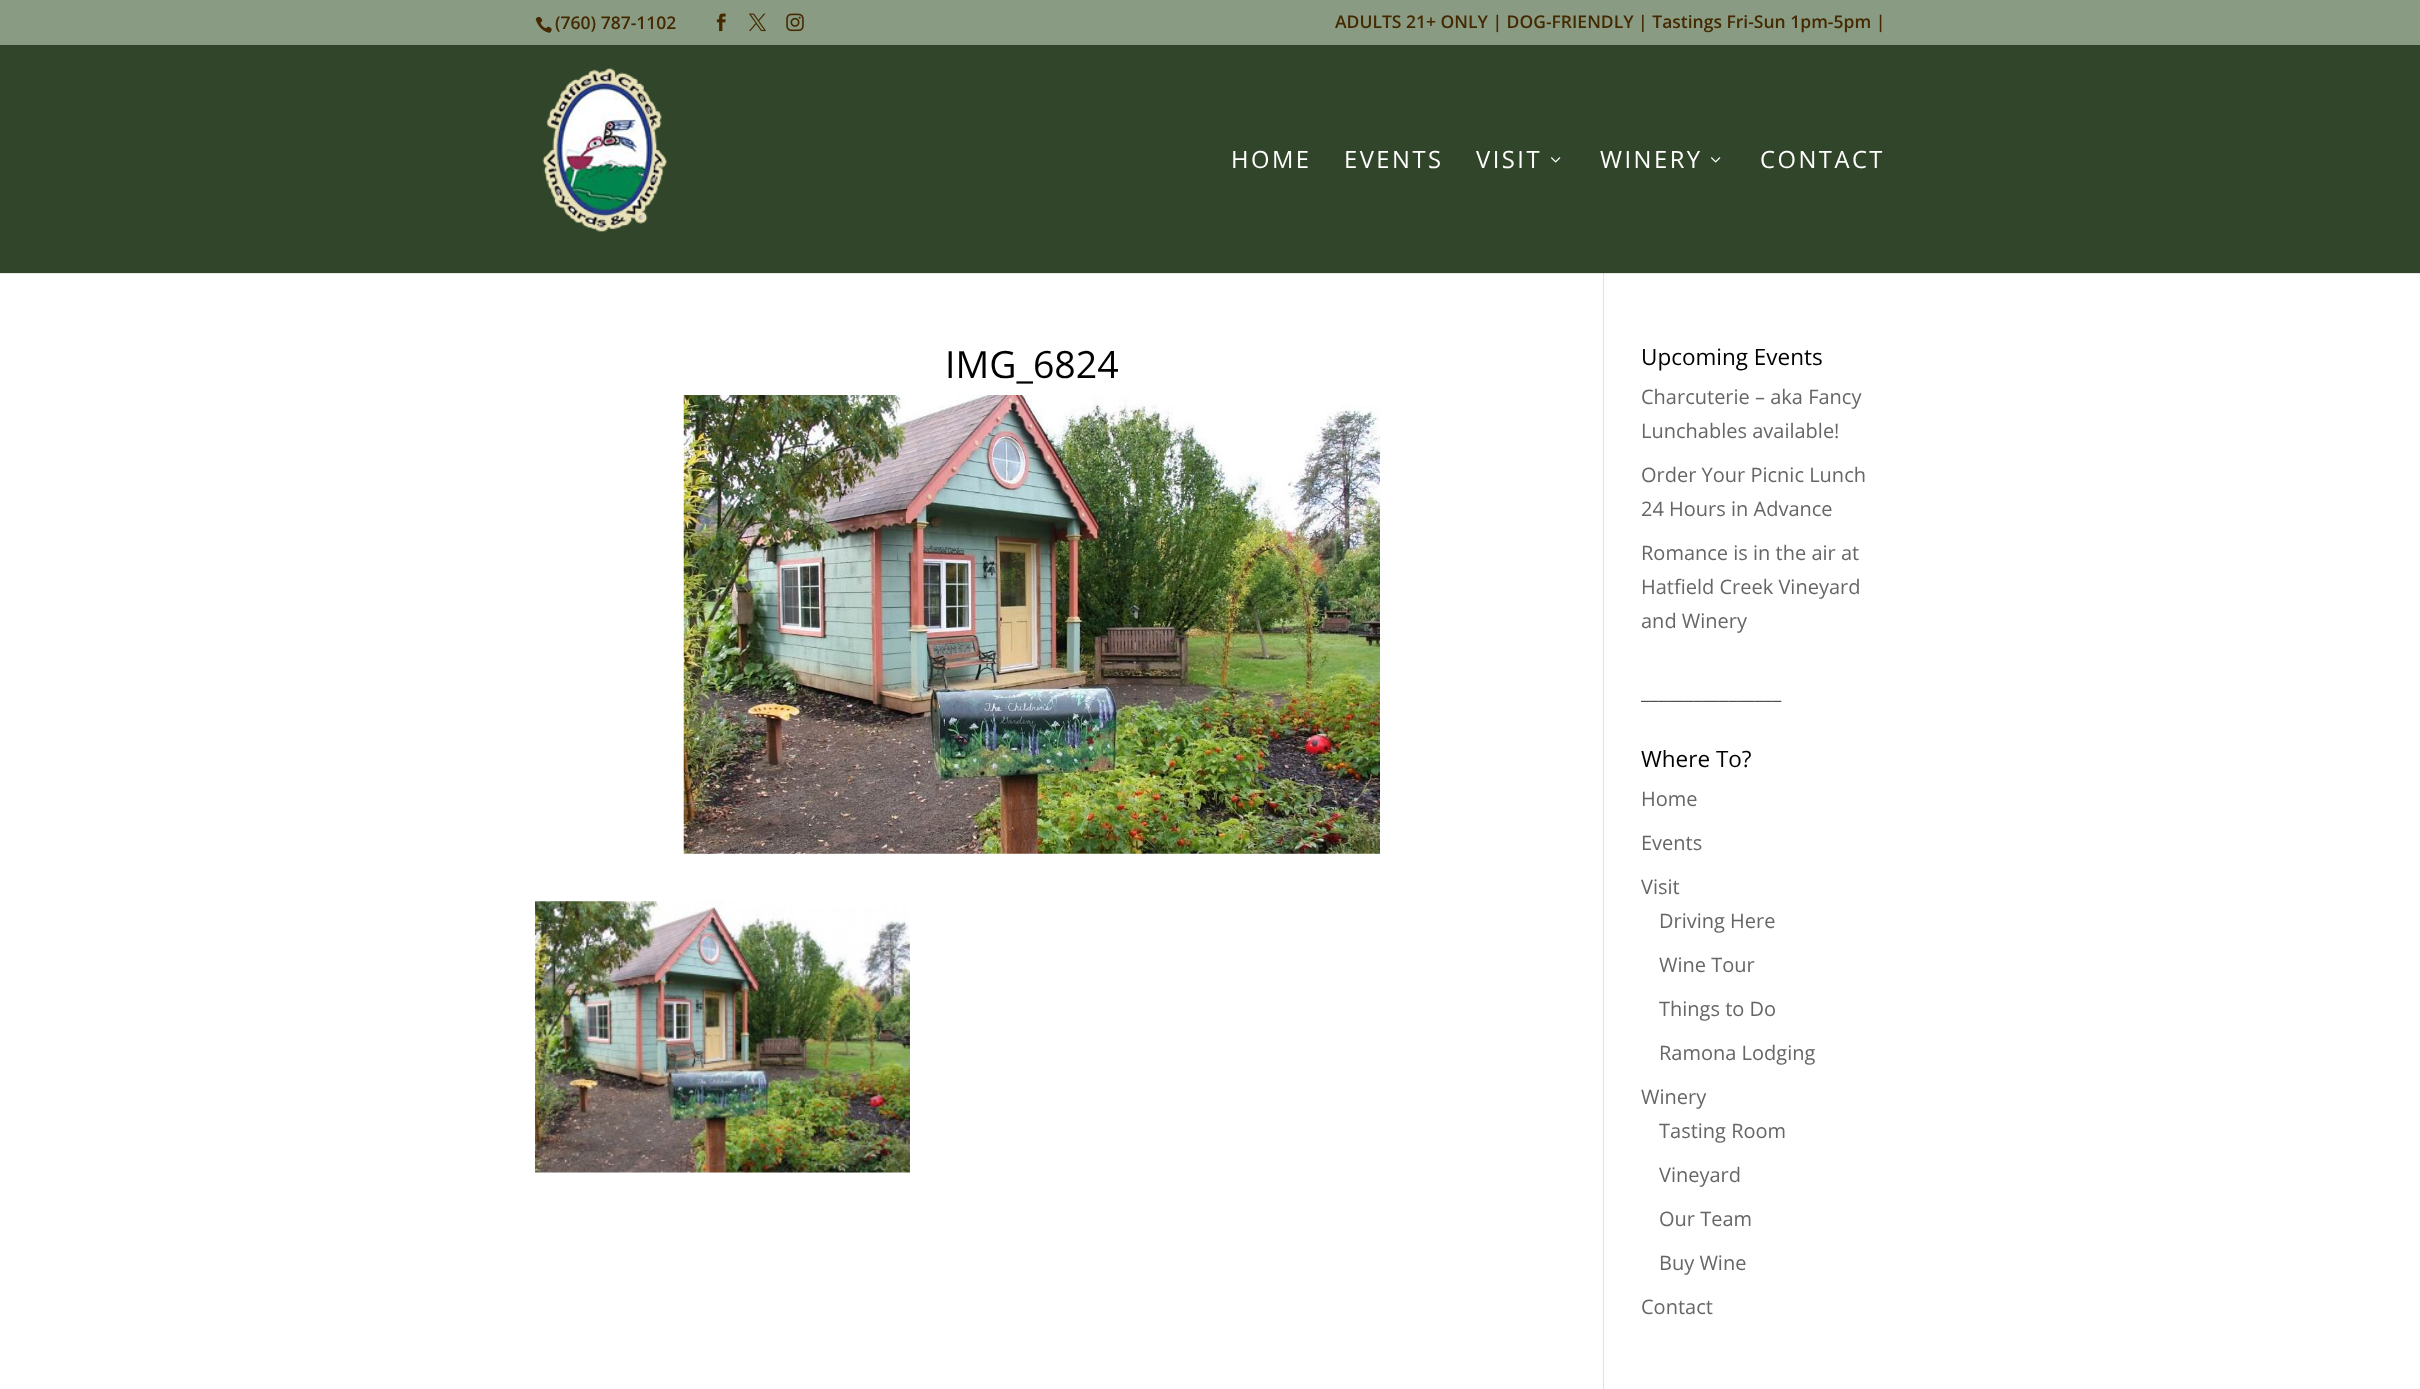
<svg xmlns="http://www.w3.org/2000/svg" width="2420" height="1389">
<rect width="100%" height="100%" fill="#fff"/>
<rect y="273" width="2420" height="1" fill="#e6e6e6"/>
<rect width="2420" height="45" fill="#899c83"/>
<image x="535" y="16" width="17" height="17" href="media/1.png"/>
<text x="555" y="29" style="font-family:Open Sans;font-size:17.5px;font-weight:600;fill:#442800">(760) 787-1102</text>
<image x="716" y="13" width="10" height="19" href="media/2.png"/>
<image x="749" y="13" width="17" height="19" href="media/3.png"/>
<image x="786" y="13" width="18" height="19" href="media/4.png"/>
<text x="1335" y="28" style="font-family:Open Sans;font-size:17.5px;font-weight:600;fill:#442800">ADULTS 21+ ONLY | DOG-FRIENDLY | Tastings Fri-Sun 1pm-5pm |</text>
<rect y="45" width="2420" height="228" fill="#304529"/>
<image x="542" y="68" width="125" height="164" href="media/5.png"/>
<text x="1231" y="168" style="font-family:Open Sans;font-size:23.75px;letter-spacing:2.5px;fill:#fff">HOME</text>
<text x="1344" y="168" style="font-family:Open Sans;font-size:23.75px;letter-spacing:2.5px;fill:#fff">EVENTS</text>
<text x="1476" y="168" style="font-family:Open Sans;font-size:23.75px;letter-spacing:2.5px;fill:#fff">VISIT</text>
<image x="1551" y="157" width="10" height="6" href="media/6.png"/>
<text x="1600" y="168" style="font-family:Open Sans;font-size:23.75px;letter-spacing:2.5px;fill:#fff">WINERY</text>
<image x="1711" y="157" width="10" height="6" href="media/6.png"/>
<text x="1760" y="168" style="font-family:Open Sans;font-size:23.75px;letter-spacing:2.5px;fill:#fff">CONTACT</text>
<rect x="1603" y="273" width="1" height="1116" fill="#e2e2e2"/>
<rect x="1603" y="273" width="1" height="1" fill="#cbcbcb"/>
<text x="945" y="378" style="font-family:Open Sans;font-size:37.5px;fill:#000">IMG_6824</text>
<image x="683" y="395" width="697" height="459" href="media/7.png"/>
<image x="535" y="901" width="375" height="272" href="media/8.png"/>
<text x="1641" y="365" style="font-family:Open Sans;font-size:22.5px;fill:#000">Upcoming Events</text>
<text x="1641" y="404" style="font-family:Open Sans;font-size:20px;fill:#666">Charcuterie – aka Fancy</text>
<text x="1641" y="438" style="font-family:Open Sans;font-size:20px;fill:#666">Lunchables available!</text>
<text x="1641" y="482" style="font-family:Open Sans;font-size:20px;fill:#666">Order Your Picnic Lunch</text>
<text x="1641" y="516" style="font-family:Open Sans;font-size:20px;fill:#666">24 Hours in Advance</text>
<text x="1641" y="560" style="font-family:Open Sans;font-size:20px;fill:#666">Romance is in the air at</text>
<text x="1641" y="594" style="font-family:Open Sans;font-size:20px;fill:#666">Hatfield Creek Vineyard</text>
<text x="1641" y="628" style="font-family:Open Sans;font-size:20px;fill:#666">and Winery</text>
<text x="1641" y="699" style="font-family:Open Sans;font-size:20px;fill:#4f4f4f">________________</text>
<text x="1641" y="767" style="font-family:Open Sans;font-size:22.5px;fill:#000">Where To?</text>
<text x="1641" y="806" style="font-family:Open Sans;font-size:20px;fill:#666">Home</text>
<text x="1641" y="850" style="font-family:Open Sans;font-size:20px;fill:#666">Events</text>
<text x="1641" y="894" style="font-family:Open Sans;font-size:20px;fill:#666">Visit</text>
<text x="1659" y="928" style="font-family:Open Sans;font-size:20px;fill:#666">Driving Here</text>
<text x="1659" y="972" style="font-family:Open Sans;font-size:20px;fill:#666">Wine Tour</text>
<text x="1659" y="1016" style="font-family:Open Sans;font-size:20px;fill:#666">Things to Do</text>
<text x="1659" y="1060" style="font-family:Open Sans;font-size:20px;fill:#666">Ramona Lodging</text>
<text x="1641" y="1104" style="font-family:Open Sans;font-size:20px;fill:#666">Winery</text>
<text x="1659" y="1138" style="font-family:Open Sans;font-size:20px;fill:#666">Tasting Room</text>
<text x="1659" y="1182" style="font-family:Open Sans;font-size:20px;fill:#666">Vineyard</text>
<text x="1659" y="1226" style="font-family:Open Sans;font-size:20px;fill:#666">Our Team</text>
<text x="1659" y="1270" style="font-family:Open Sans;font-size:20px;fill:#666">Buy Wine</text>
<text x="1641" y="1314" style="font-family:Open Sans;font-size:20px;fill:#666">Contact</text>
</svg>
